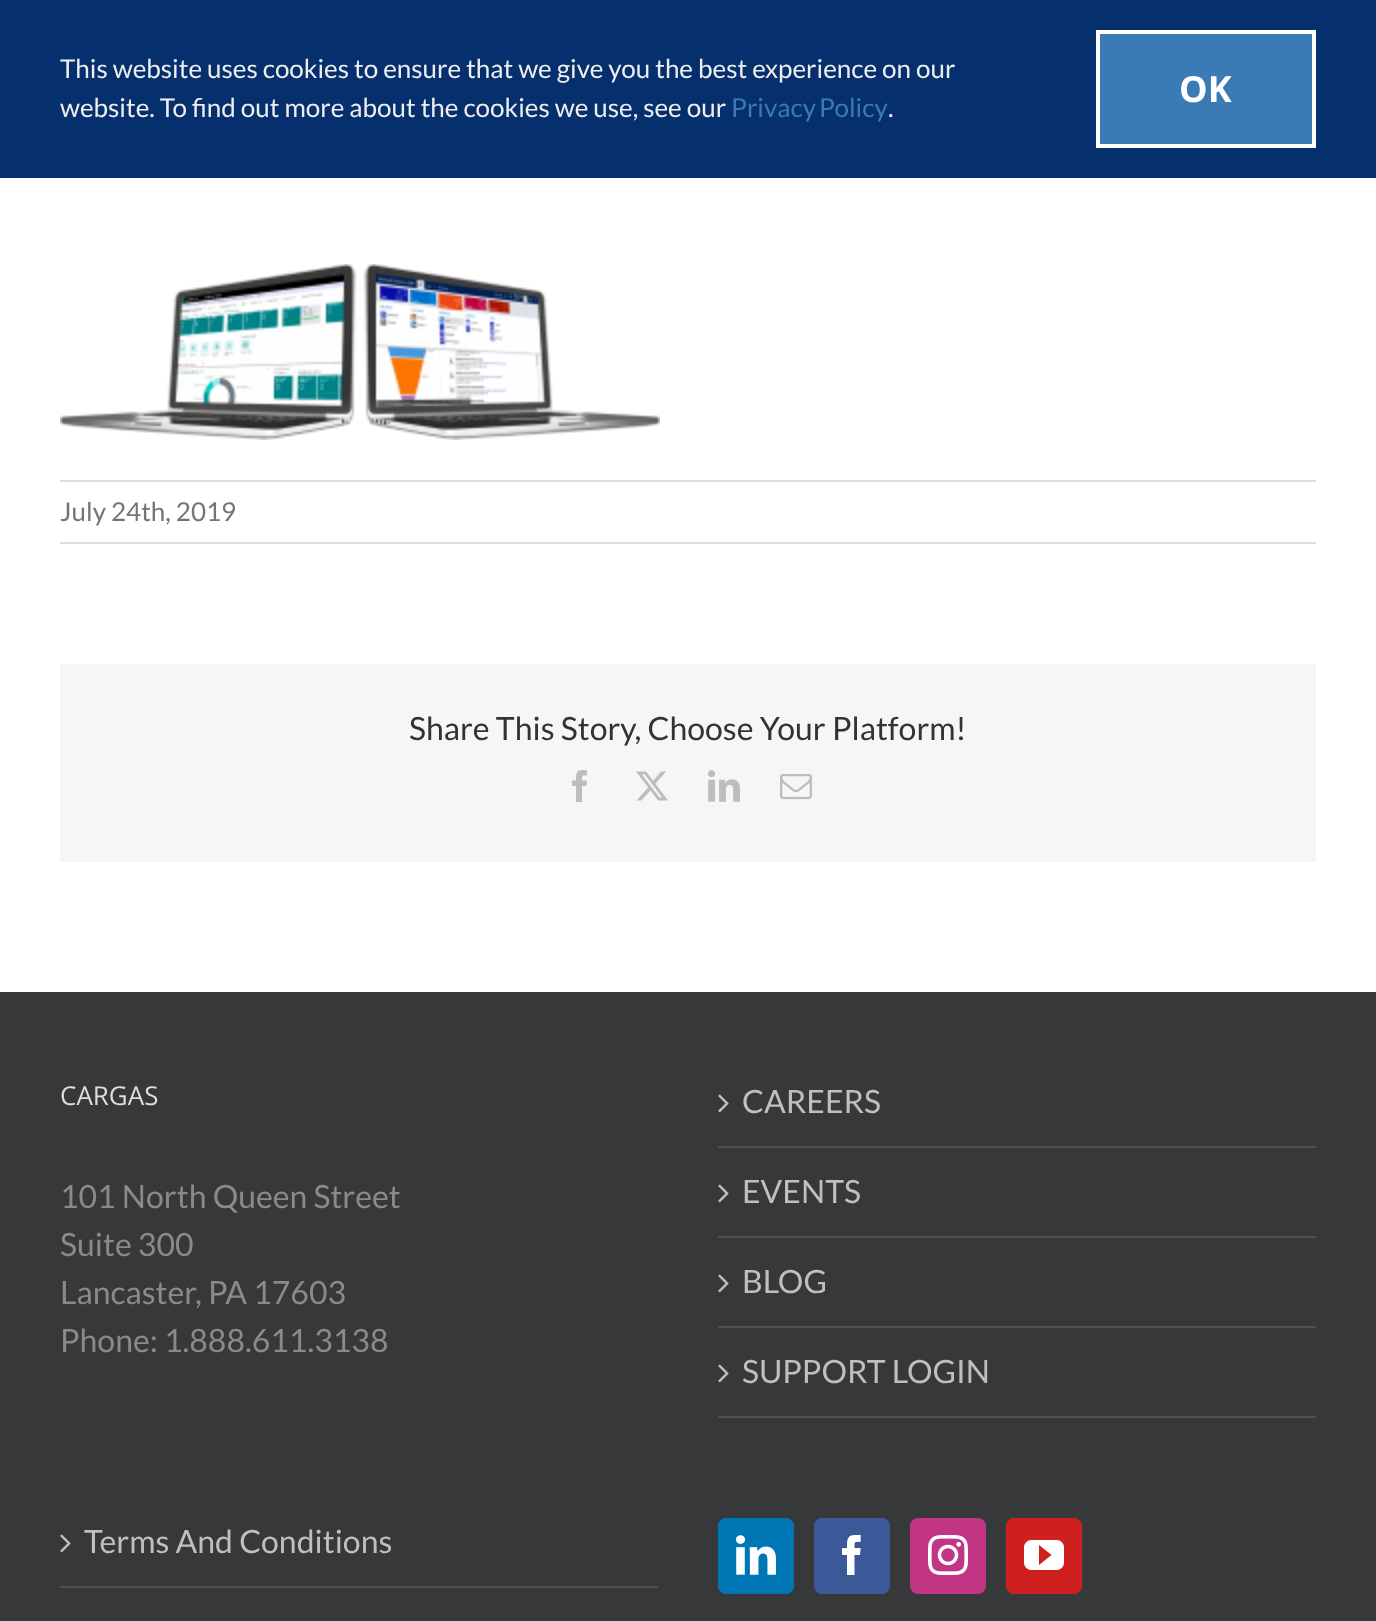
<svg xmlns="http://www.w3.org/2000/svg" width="1376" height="1621">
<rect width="100%" height="100%" fill="#fff"/>
<rect width="1376" height="178" fill="#062f6e"/>
<text x="60" y="78" style="font-family:Lato;font-size:26px;fill:#eee">This website uses cookies to ensure that we give you the best experience on our</text>
<text x="60" y="117" style="font-family:Lato;font-size:26px;fill:#eee">website. To find out more about the cookies we use, see our</text>
<text x="731" y="117" word-spacing="-2" style="font-family:Lato;font-size:26px;fill:#3a7bb5">Privacy Policy</text>
<text x="888" y="117" style="font-family:Lato;font-size:26px;fill:#eee">.</text>
<rect x="1098" y="32" width="216" height="114" fill="#3a7bb5" stroke="#fff" stroke-width="4"/>
<text x="1179" y="102" style="font-family:Open Sans;font-size:36px;font-weight:bold;fill:#fff">OK</text>
<image x="60" y="264" width="600" height="176" href="media/1.png"/>
<rect x="60" y="480" width="1256" height="2" fill="#e0dede"/>
<rect x="60" y="542" width="1256" height="2" fill="#e0dede"/>
<text x="60" y="521" style="font-family:Lato;font-size:26px;fill:#747474">July 24th, 2019</text>
<rect x="60" y="664" width="1256" height="198" fill="#f6f6f6"/>
<text x="409" y="740" style="font-family:Lato;font-size:32px;fill:#333">Share This Story, Choose Your Platform!</text>
<image x="572" y="770" width="15" height="32" href="media/2.png"/>
<image x="636" y="771" width="32" height="30" href="media/3.png"/>
<image x="708" y="770" width="32" height="32" href="media/4.png"/>
<image x="780" y="774" width="32" height="26" href="media/5.png"/>
<rect y="992" width="1376" height="629" fill="#363839"/>
<text x="60" y="1105" style="font-family:Open Sans;font-size:26px;fill:#ddd">CARGAS</text>
<text x="60" y="1208" style="font-family:Lato;font-size:32px;fill:#8c8989">101 North Queen Street</text>
<text x="60" y="1256" style="font-family:Lato;font-size:32px;fill:#8c8989">Suite 300</text>
<text x="60" y="1304" style="font-family:Lato;font-size:32px;fill:#8c8989">Lancaster, PA 17603</text>
<text x="60" y="1352" style="font-family:Lato;font-size:32px;fill:#8c8989">Phone: 1.888.611.3138</text>
<rect x="718" y="1146" width="598" height="2" fill="#505152"/>
<image x="718" y="1094" width="11" height="19" href="media/6.png"/>
<text x="742" y="1113" style="font-family:Lato;font-size:32px;fill:#bfbfbf">CAREERS</text>
<rect x="718" y="1236" width="598" height="2" fill="#505152"/>
<image x="718" y="1184" width="11" height="19" href="media/6.png"/>
<text x="742" y="1203" style="font-family:Lato;font-size:32px;fill:#bfbfbf">EVENTS</text>
<rect x="718" y="1326" width="598" height="2" fill="#505152"/>
<image x="718" y="1274" width="11" height="19" href="media/6.png"/>
<text x="742" y="1293" style="font-family:Lato;font-size:32px;fill:#bfbfbf">BLOG</text>
<rect x="718" y="1416" width="598" height="2" fill="#505152"/>
<image x="718" y="1364" width="11" height="19" href="media/6.png"/>
<text x="742" y="1383" style="font-family:Lato;font-size:32px;fill:#bfbfbf">SUPPORT LOGIN</text>
<rect x="60" y="1586" width="598" height="2" fill="#505152"/>
<image x="60" y="1534" width="11" height="19" href="media/6.png"/>
<text x="84" y="1553" style="font-family:Lato;font-size:32px;fill:#bfbfbf">Terms And Conditions</text>
<rect x="719" y="1519" width="74" height="74" rx="7" fill="#0077b5" stroke="#0077b5" stroke-width="2"/>
<image x="736" y="1535" width="40" height="40" href="media/7.png"/>
<rect x="815" y="1519" width="74" height="74" rx="7" fill="#3b5998" stroke="#3b5998" stroke-width="2"/>
<image x="842" y="1535" width="19" height="40" href="media/8.png"/>
<rect x="911" y="1519" width="74" height="74" rx="7" fill="#c13584" stroke="#c13584" stroke-width="2"/>
<image x="928" y="1535" width="40" height="40" href="media/9.png"/>
<rect x="1007" y="1519" width="74" height="74" rx="7" fill="#cd201f" stroke="#cd201f" stroke-width="2"/>
<image x="1024" y="1540" width="40" height="30" href="media/10.png"/>
</svg>
